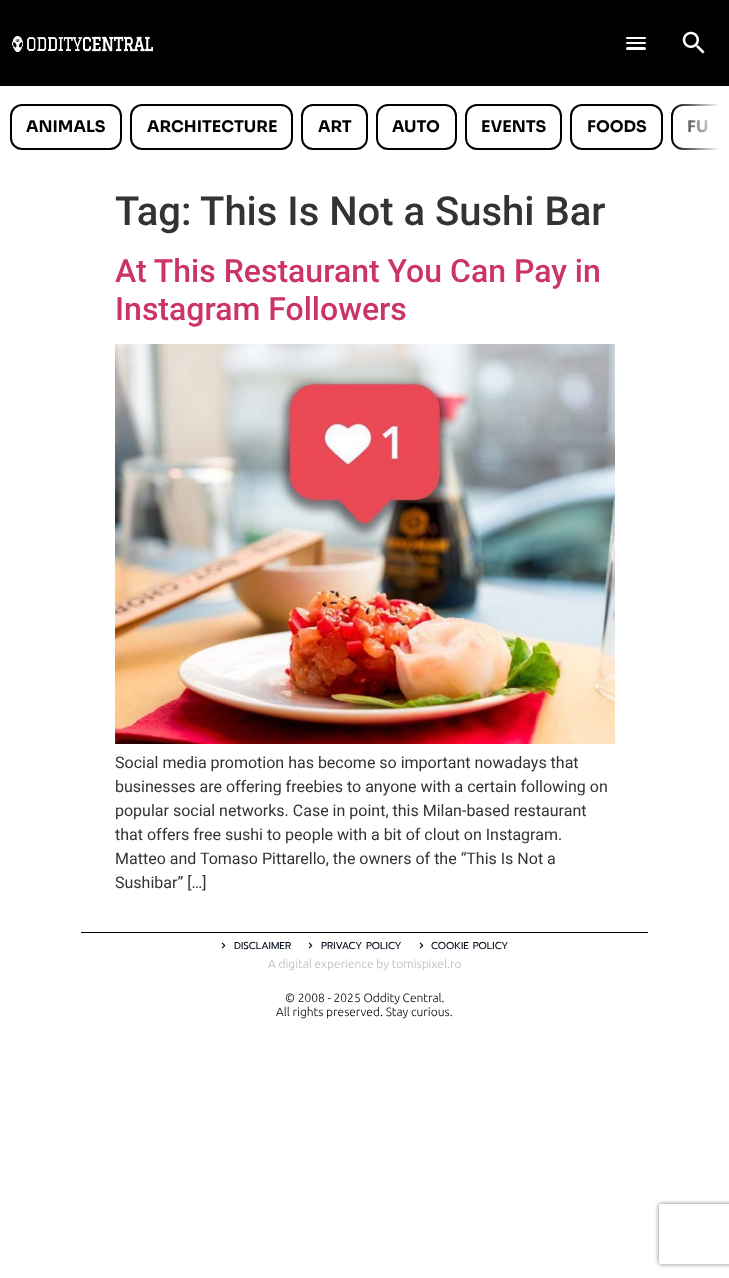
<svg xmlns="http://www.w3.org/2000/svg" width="729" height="1278">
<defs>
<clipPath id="clip1"><rect x="10" y="100" width="709" height="54"/></clipPath>
<linearGradient id="g1" gradientUnits="userSpaceOnUse" x1="719" y1="127" x2="671" y2="127"><stop offset="0" stop-color="#fff"/><stop offset="1" stop-color="#fff" stop-opacity="0"/></linearGradient>
<clipPath id="clip2"><path d="M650 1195h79v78h-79zm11 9h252c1 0 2 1 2 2v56c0 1-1 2-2 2h-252c-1 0-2-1-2-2v-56c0-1 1-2 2-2z" clip-rule="evenodd"/></clipPath>
</defs>
<rect width="100%" height="100%" fill="#fff"/>
<rect width="729" height="86" fill="#000"/>
<image x="12" y="36" width="141" height="16" href="media/1.png"/>
<rect x="626" y="37" width="20" height="2" rx="1" fill="#fff"/>
<rect x="626" y="42" width="20" height="2" rx="1" fill="#fff"/>
<rect x="626" y="47" width="20" height="3" rx="1.5" fill="#fff"/>
<image x="682" y="31" width="23" height="23" href="media/2.png"/>
<g clip-path="url(#clip1)">
<rect x="672" y="105" width="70" height="44" rx="11" fill="none" stroke="#000" stroke-width="2"/>
</g>
<text x="687" y="132" style="font-family:Sora;font-size:16px;font-weight:bold;fill:#000">FU</text>
<rect x="672" y="104" width="47" height="46" fill="url(#g1)"/>
<rect x="11" y="105" width="110" height="44" rx="11" fill="none" stroke="#000" stroke-width="2"/>
<text x="26" y="132" style="font-family:Sora;font-size:16px;font-weight:bold;fill:#000">ANIMALS</text>
<rect x="131" y="105" width="161" height="44" rx="11" fill="none" stroke="#000" stroke-width="2"/>
<text x="147" y="132" style="font-family:Sora;font-size:16px;font-weight:bold;fill:#000">ARCHITECTURE</text>
<rect x="302" y="105" width="65" height="44" rx="11" fill="none" stroke="#000" stroke-width="2"/>
<text x="318" y="132" style="font-family:Sora;font-size:16px;font-weight:bold;fill:#000">ART</text>
<rect x="377" y="105" width="79" height="44" rx="11" fill="none" stroke="#000" stroke-width="2"/>
<text x="392" y="132" style="font-family:Sora;font-size:16px;font-weight:bold;fill:#000">AUTO</text>
<rect x="466" y="105" width="95" height="44" rx="11" fill="none" stroke="#000" stroke-width="2"/>
<text x="481" y="132" style="font-family:Sora;font-size:16px;font-weight:bold;fill:#000">EVENTS</text>
<rect x="571" y="105" width="91" height="44" rx="11" fill="none" stroke="#000" stroke-width="2"/>
<text x="587" y="132" style="font-family:Sora;font-size:16px;font-weight:bold;fill:#000">FOODS</text>
<text x="115" y="225" style="font-family:Roboto;font-size:40px;font-weight:500;fill:#333">Tag:</text>
<text x="200" y="225" style="font-family:Roboto;font-size:40px;font-weight:500;fill:#333">This Is Not a Sushi Bar</text>
<text x="115" y="282" style="font-family:Roboto;font-size:32px;font-weight:500;fill:#c36">At This Restaurant You Can Pay in</text>
<text x="115" y="320" style="font-family:Roboto;font-size:32px;font-weight:500;fill:#c36">Instagram Followers</text>
<image x="115" y="344" width="500" height="400" href="media/3.png"/>
<text x="115" y="768" style="font-family:Roboto;font-size:16px;fill:#333">Social media promotion has become so important nowadays that</text>
<text x="115" y="792" style="font-family:Roboto;font-size:16px;fill:#333">businesses are offering freebies to anyone with a certain following on</text>
<text x="115" y="816" style="font-family:Roboto;font-size:16px;fill:#333">popular social networks. Case in point, this Milan-based restaurant</text>
<text x="115" y="840" style="font-family:Roboto;font-size:16px;fill:#333">that offers free sushi to people with a bit of clout on Instagram.</text>
<text x="115" y="864" style="font-family:Roboto;font-size:16px;fill:#333">Matteo and Tomaso Pittarello, the owners of the “This Is Not a</text>
<text x="115" y="888" style="font-family:Roboto;font-size:16px;fill:#333">Sushibar” […]</text>
<rect x="81" y="932" width="567" height="1" fill="#000"/>
<image x="221" y="942" width="5" height="7" href="media/4.png"/>
<text x="234" y="949" style="font-family:Prompt;font-size:10px;fill:#000818">DISCLAIMER</text>
<image x="308" y="942" width="5" height="7" href="media/4.png"/>
<text x="321" y="949" style="font-family:Prompt;font-size:10px;fill:#000818">PRIVACY POLICY</text>
<image x="419" y="942" width="5" height="7" href="media/4.png"/>
<text x="431" y="949" style="font-family:Prompt;font-size:10px;fill:#000818">COOKIE POLICY</text>
<text x="268" y="968" style="font-family:Ubuntu;font-size:12px;font-weight:300;fill:#bbb">A digital experience by tomispixel.ro</text>
<text x="285" y="1002" style="font-family:Ubuntu;font-size:12px;font-weight:300;fill:#000">© 2008 - 2025 Oddity Central.</text>
<text x="276" y="1016" style="font-family:Ubuntu;font-size:12px;font-weight:300;fill:#000">All rights preserved. Stay curious.</text>
<g clip-path="url(#clip2)">
<rect x="659" y="1204" width="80" height="60" rx="2" fill="#808080" filter="blur(2.5px)"/>
</g>
</svg>
